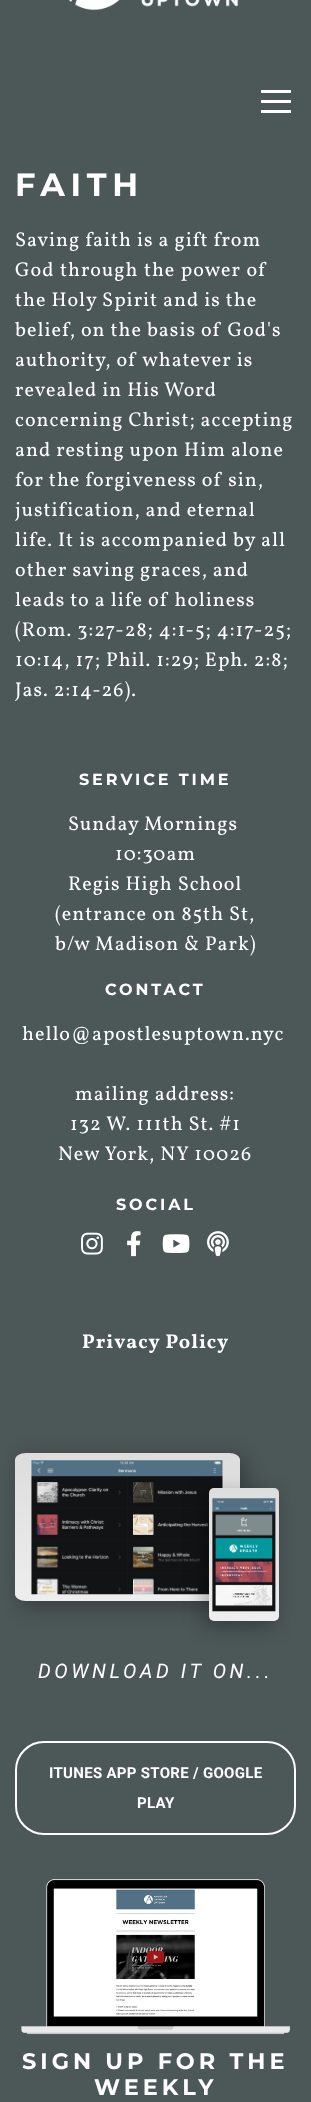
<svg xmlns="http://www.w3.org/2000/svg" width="311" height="2102">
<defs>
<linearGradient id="g1" gradientUnits="userSpaceOnUse" x1="127" y1="1453" x2="128" y2="1601"><stop offset="0" stop-color="#ddd"/><stop offset="1" stop-color="#eee"/></linearGradient>
<linearGradient id="g2" gradientUnits="userSpaceOnUse" x1="244" y1="1488" x2="244" y2="1621"><stop offset="0" stop-color="#ddd"/><stop offset="1" stop-color="#eee"/></linearGradient>
</defs>
<rect width="100%" height="100%" fill="#4c5758"/>
<image x="68" y="0" width="171" height="11" href="media/1.png"/>
<rect x="261" y="90" width="30" height="3" fill="#fff"/>
<rect x="261" y="100" width="30" height="3" fill="#fff"/>
<rect x="261" y="110" width="30" height="3" fill="#fff"/>
<text x="15" y="196" style="font-family:Montserrat;font-size:32px;font-weight:bold;letter-spacing:5.75px;fill:#fff">FAITH</text>
<text x="15" y="246" style="font-family:Vollkorn;font-size:20px;letter-spacing:1px;fill:#fff">Saving faith is a gift from</text>
<text x="15" y="276" word-spacing="0.5" style="font-family:Vollkorn;font-size:20px;letter-spacing:1px;fill:#fff">God through the power of</text>
<text x="15" y="306" style="font-family:Vollkorn;font-size:20px;letter-spacing:1px;fill:#fff">the Holy Spirit and is the</text>
<text x="15" y="336" style="font-family:Vollkorn;font-size:20px;letter-spacing:1px;fill:#fff">belief, on the basis of God's</text>
<text x="15" y="366" style="font-family:Vollkorn;font-size:20px;letter-spacing:1px;fill:#fff">authority, of whatever is</text>
<text x="15" y="396" style="font-family:Vollkorn;font-size:20px;letter-spacing:1px;fill:#fff">revealed in His Word</text>
<text x="15" y="426" style="font-family:Vollkorn;font-size:20px;letter-spacing:1px;fill:#fff">concerning Christ; accepting</text>
<text x="15" y="456" style="font-family:Vollkorn;font-size:20px;letter-spacing:1px;fill:#fff">and resting upon Him alone</text>
<text x="15" y="486" style="font-family:Vollkorn;font-size:20px;letter-spacing:1px;fill:#fff">for the forgiveness of sin,</text>
<text x="15" y="516" style="font-family:Vollkorn;font-size:20px;letter-spacing:1px;fill:#fff">justification, and eternal</text>
<text x="15" y="546" style="font-family:Vollkorn;font-size:20px;letter-spacing:1px;fill:#fff">life. It is accompanied by all</text>
<text x="15" y="576" style="font-family:Vollkorn;font-size:20px;letter-spacing:1px;fill:#fff">other saving graces, and</text>
<text x="15" y="606" style="font-family:Vollkorn;font-size:20px;letter-spacing:1px;fill:#fff">leads to a life of holiness</text>
<text x="15" y="636" style="font-family:Vollkorn;font-size:20px;letter-spacing:1px;fill:#fff">(Rom. 3:27-28; 4:1-5; 4:17-25;</text>
<text x="15" y="666" style="font-family:Vollkorn;font-size:20px;letter-spacing:1px;fill:#fff">10:14, 17; Phil. 1:29; Eph. 2:8;</text>
<text x="15" y="696" style="font-family:Vollkorn;font-size:20px;letter-spacing:1px;fill:#fff">Jas. 2:14-26).</text>
<text x="79" y="785" style="font-family:Montserrat;font-size:16px;font-weight:bold;letter-spacing:2.9px;fill:#fff">SERVICE TIME</text>
<text x="68" y="830" style="font-family:Vollkorn;font-size:20px;letter-spacing:1px;fill:#fff">Sunday Mornings</text>
<text x="115" y="860" style="font-family:Vollkorn;font-size:20px;letter-spacing:1px;fill:#fff">10:30am</text>
<text x="68" y="890" style="font-family:Vollkorn;font-size:20px;letter-spacing:1px;fill:#fff">Regis High School</text>
<text x="55" y="920" style="font-family:Vollkorn;font-size:20px;letter-spacing:1px;fill:#fff">(entrance on 85th St,</text>
<text x="55" y="950" style="font-family:Vollkorn;font-size:20px;letter-spacing:1px;fill:#fff">b/w Madison &amp; Park)</text>
<text x="105" y="995" style="font-family:Montserrat;font-size:16px;font-weight:bold;letter-spacing:2.9px;fill:#fff">CONTACT</text>
<text x="22" y="1040" style="font-family:Vollkorn;font-size:20px;letter-spacing:1px;fill:#fff">hello@apostlesuptown.nyc</text>
<text x="75" y="1100" style="font-family:Vollkorn;font-size:20px;letter-spacing:1px;fill:#fff">mailing address:</text>
<text x="70" y="1130" style="font-family:Vollkorn;font-size:20px;letter-spacing:1px;fill:#fff">132 W. 111th St. #1</text>
<text x="58" y="1160" style="font-family:Vollkorn;font-size:20px;letter-spacing:1px;fill:#fff">New York, NY 10026</text>
<text x="116" y="1210" style="font-family:Montserrat;font-size:16px;font-weight:bold;letter-spacing:2.9px;fill:#fff">SOCIAL</text>
<image x="81" y="1232" width="22" height="23" href="media/2.png"/>
<image x="127" y="1231" width="14" height="26" href="media/3.png"/>
<image x="162" y="1234" width="28" height="19" href="media/4.png"/>
<image x="207" y="1231" width="22" height="26" href="media/5.png"/>
<text x="82" y="1348" style="font-family:Vollkorn;font-size:20px;font-weight:bold;letter-spacing:1px;fill:#fff">Privacy Policy</text>
<rect x="20" y="1458" width="225" height="148" rx="7" fill="#0000004d" filter="blur(10px)"/>
<path d="M26 1453h203c6 0 11 3 11 7v134c0 4-5 7-11 7h-203c-6 0-11-3-11-7v-134c0-4 5-7 11-7z" fill="url(#g1)"/>
<image x="31" y="1460" width="192" height="135" href="media/6.png"/>
<rect x="204" y="1493" width="70" height="133" rx="4" fill="#0000004d" filter="blur(10px)"/>
<rect x="209" y="1488" width="70" height="133" rx="5" fill="url(#g2)"/>
<image x="212" y="1498" width="64" height="114" href="media/7.png"/>
<text x="38" y="1678" style="font-family:Roboto;font-size:20px;font-style:italic;letter-spacing:3.6px;fill:#fff">DOWNLOAD IT ON...</text>
<rect x="16" y="1742" width="279" height="92" rx="28" fill="none" stroke="#fff" stroke-width="2"/>
<text x="49" y="1778" style="font-family:Roboto;font-size:15px;font-weight:bold;letter-spacing:0.3px;fill:#fff">ITUNES APP STORE / GOOGLE</text>
<text x="137" y="1808" style="font-family:Roboto;font-size:15px;font-weight:bold;letter-spacing:0.3px;fill:#fff">PLAY</text>
<image x="21" y="1879" width="269" height="156" href="media/8.png"/>
<text x="22" y="2069" style="font-family:Montserrat;font-size:22.4px;font-weight:bold;letter-spacing:4px;fill:#fff">SIGN UP FOR THE</text>
<text x="94" y="2095" style="font-family:Montserrat;font-size:22.4px;font-weight:bold;letter-spacing:4px;fill:#fff">WEEKLY</text>
</svg>
